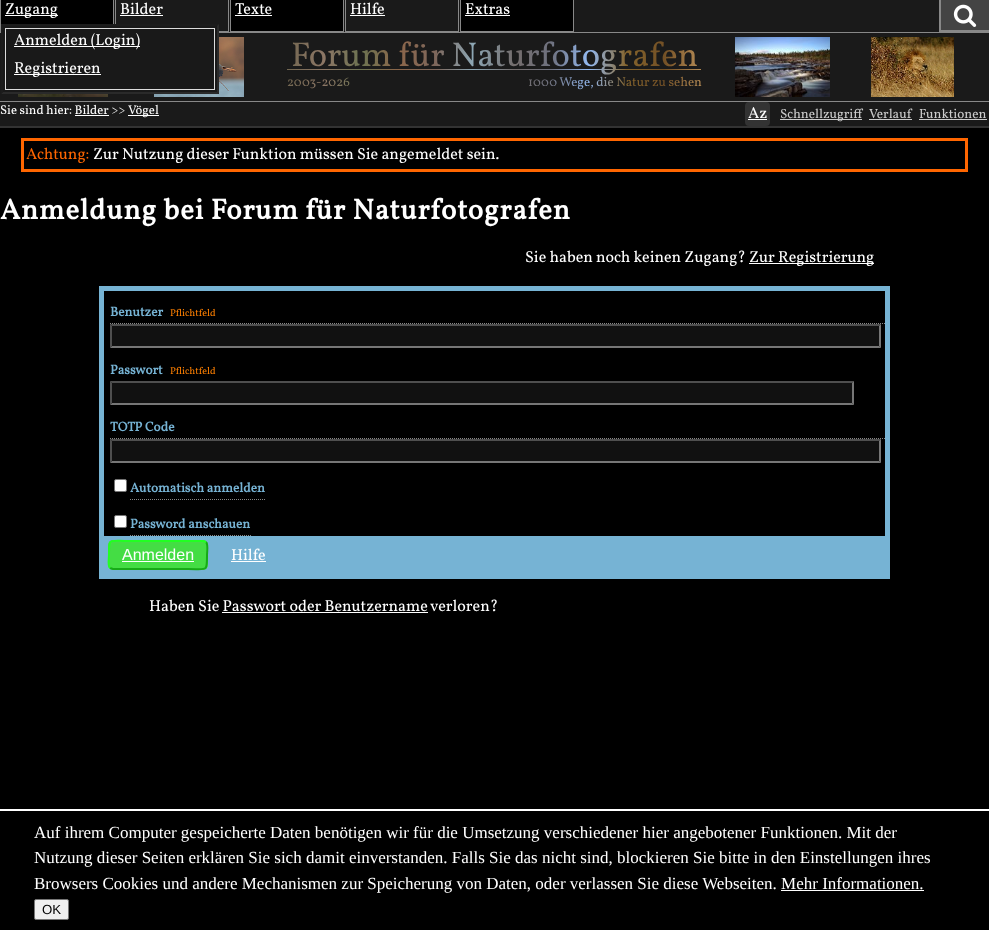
<svg xmlns="http://www.w3.org/2000/svg" width="989" height="930">
<defs>
<linearGradient id="g1" gradientUnits="userSpaceOnUse" x1="287" y1="67" x2="701" y2="67"><stop offset="0" stop-color="#736751"/><stop offset="0.09" stop-color="#8c7665"/><stop offset="0.18" stop-color="#6c7351"/><stop offset="0.27" stop-color="#8c664a"/><stop offset="0.36" stop-color="#7d675c"/><stop offset="0.45" stop-color="#8da7b5"/><stop offset="0.55" stop-color="#736c6b"/><stop offset="0.64" stop-color="#6f7280"/><stop offset="0.73" stop-color="#94baf2"/><stop offset="0.82" stop-color="#85642c"/><stop offset="0.91" stop-color="#735025"/><stop offset="1" stop-color="#b58b55"/></linearGradient>
<linearGradient id="g2" gradientUnits="userSpaceOnUse" x1="287" y1="70" x2="701" y2="69"><stop offset="0" stop-color="#736751"/><stop offset="0.09" stop-color="#8c7665"/><stop offset="0.18" stop-color="#6c7351"/><stop offset="0.27" stop-color="#8c664a"/><stop offset="0.36" stop-color="#7d675c"/><stop offset="0.45" stop-color="#8da7b5"/><stop offset="0.55" stop-color="#736c6b"/><stop offset="0.64" stop-color="#6f7280"/><stop offset="0.73" stop-color="#94baf2"/><stop offset="0.82" stop-color="#85642c"/><stop offset="0.91" stop-color="#735025"/><stop offset="1" stop-color="#b58b55"/></linearGradient>
</defs>
<rect width="100%" height="100%" fill="#000"/>
<rect width="989" height="126" fill="#1a1a1a"/>
<rect y="126" width="989" height="2" fill="#333"/>
<rect x="1" width="112" height="24" fill="#000"/>
<rect x="113" width="1" height="32" fill="#888"/>
<rect width="1" height="32" fill="#888"/>
<rect x="5" y="15" width="53" height="1" fill="#fff"/>
<text x="5" y="14" style="font-family:Vollkorn;font-size:16px;fill:#fff">Zugang</text>
<rect x="115" width="1" height="32" fill="#888"/>
<rect y="32" width="989" height="1" fill="#888"/>
<image x="154" y="37" width="90" height="60" href="media/2.png"/>
<rect x="1" y="24" width="218" height="70" fill="#191919"/>
<path d="M1 24h218l-2 2h-214z" fill="#1c1c1c"/>
<path d="M219 24v70l-2-2v-66z" fill="#2a2a2a"/>
<path d="M219 94h-218l2-2h214z" fill="#2a2a2a"/>
<path d="M1 94v-70l2 2v66z" fill="#1c1c1c"/>
<rect x="5.5" y="28.5" width="209" height="61" fill="none" stroke="#ddd"/>
<rect x="14" y="46" width="126" height="1" fill="#fff"/>
<text x="14" y="45" style="font-family:Vollkorn;font-size:16px;fill:#fff">Anmelden (Login)</text>
<rect x="14" y="74" width="87" height="1" fill="#fff"/>
<text x="14" y="73" style="font-family:Vollkorn;font-size:16px;fill:#fff">Registrieren</text>
<rect x="228" width="1" height="32" fill="#888"/>
<rect x="219" y="31" width="10" height="1" fill="#888"/>
<text x="120" y="14" style="font-family:Vollkorn;font-size:16px;fill:#fff">Bilder</text>
<rect x="120" y="15" width="43" height="1" fill="#fff"/>
<rect x="231" width="112" height="31" fill="#000"/>
<rect x="343" width="1" height="32" fill="#888"/>
<rect x="230" y="31" width="114" height="1" fill="#888"/>
<rect x="230" width="1" height="32" fill="#888"/>
<text x="235" y="14" style="font-family:Vollkorn;font-size:16px;fill:#fff">Texte</text>
<rect x="235" y="15" width="37" height="1" fill="#fff"/>
<rect x="458" width="1" height="32" fill="#888"/>
<rect x="345" y="31" width="114" height="1" fill="#888"/>
<rect x="345" width="1" height="32" fill="#888"/>
<text x="350" y="14" style="font-family:Vollkorn;font-size:16px;fill:#fff">Hilfe</text>
<rect x="350" y="15" width="35" height="1" fill="#fff"/>
<rect x="461" width="112" height="31" fill="#000"/>
<rect x="573" width="1" height="32" fill="#888"/>
<rect x="460" y="31" width="114" height="1" fill="#888"/>
<rect x="460" width="1" height="32" fill="#888"/>
<text x="465" y="14" style="font-family:Vollkorn;font-size:16px;fill:#fff">Extras</text>
<rect x="465" y="15" width="45" height="1" fill="#fff"/>
<rect x="941" width="48" height="30" fill="#444"/>
<rect x="939" y="30" width="50" height="2" fill="#888"/>
<rect x="939" width="2" height="32" fill="#888"/>
<image x="953" y="4" width="24" height="23" href="media/1.png"/>
<rect y="101" width="989" height="1" fill="#888"/>
<text x="291" y="66" style="font-family:Vollkorn;font-size:34.5px;fill:url(#g1)">Forum für Naturfotografen</text>
<rect x="287" y="69" width="414" height="1" fill="url(#g2)"/>
<text x="287" y="86" style="font-family:Vollkorn;font-size:13px;fill:url(#g1)">2003-2026</text>
<text x="528" y="86" style="font-family:Vollkorn;font-size:13px;fill:url(#g1)">1000 Wege, die Natur zu sehen</text>
<image x="735" y="37" width="95" height="60" href="media/3.png"/>
<image x="871" y="37" width="83" height="60" href="media/4.png"/>
<image x="18" y="94" width="90" height="3" href="media/5.png"/>
<text x="0" y="114" style="font-family:Vollkorn;font-size:12.75px;fill:#fff">Sie sind hier: Bilder &gt;&gt;</text>
<rect x="128" y="115" width="31" height="1" fill="#fff"/>
<text x="128" y="114" style="font-family:Vollkorn;font-size:12.75px;fill:#fff">Vögel</text>
<rect x="75" y="115" width="34" height="1" fill="#fff"/>
<rect x="745" y="102" width="25" height="24" rx="4" fill="#333"/>
<text x="748" y="118" style="font-family:Vollkorn;font-size:16px;fill:#fff">Az</text>
<rect x="748" y="119" width="19" height="1" fill="#fff"/>
<rect x="780" y="119" width="82" height="1" fill="#ccc"/>
<text x="780" y="118" style="font-family:Vollkorn;font-size:13.25px;fill:#ccc">Schnellzugriff</text>
<text x="869" y="118" style="font-family:Vollkorn;font-size:13.25px;fill:#ccc">Verlauf</text>
<rect x="869" y="119" width="43" height="1" fill="#ccc"/>
<text x="919" y="118" style="font-family:Vollkorn;font-size:13.25px;fill:#ccc">Funktionen</text>
<rect x="919" y="119" width="68" height="1" fill="#ccc"/>
<rect x="22.5" y="139.5" width="944" height="31" fill="none" stroke="#f60" stroke-width="3"/>
<text x="26" y="159" style="font-family:Vollkorn;font-size:16px;fill:#f60">Achtung:</text>
<text x="93" y="159" style="font-family:Vollkorn;font-size:16px;fill:#fff">Zur Nutzung dieser Funktion müssen Sie angemeldet sein.</text>
<text x="0" y="219" style="font-family:Vollkorn;font-size:28.75px;font-weight:bold;letter-spacing:0.85px;fill:#fff">Anmeldung bei Forum für Naturfotografen</text>
<text x="525" y="262" style="font-family:Vollkorn;font-size:16px;fill:#fff">Sie haben noch keinen Zugang?</text>
<rect x="749" y="263" width="125" height="1" fill="#fff"/>
<text x="749" y="262" style="font-family:Vollkorn;font-size:16px;fill:#fff">Zur Registrierung</text>
<rect x="101.5" y="288.5" width="786" height="288" fill="none" stroke="#76b3d4" stroke-width="5"/>
<path d="M110 323.5h775" fill="none" stroke="#888" stroke-dasharray="1 1"/>
<text x="110" y="316" style="font-family:Vollkorn;font-size:13.25px;font-weight:bold;fill:#76b3d4">Benutzer</text>
<text x="170" y="316" style="font-family:Vollkorn;font-size:10px;fill:#ff8000">Pflichtfeld</text>
<rect x="110" y="324" width="771" height="24" fill="#111"/>
<path d="M110 324h771l-2 2h-767z" fill="#4f4f4f"/>
<path d="M881 324v24l-2-2v-20z" fill="#767676"/>
<path d="M881 348h-771l2-2h767z" fill="#767676"/>
<path d="M110 348v-24l2 2v20z" fill="#4f4f4f"/>
<text x="110" y="374" style="font-family:Vollkorn;font-size:13.25px;font-weight:bold;fill:#76b3d4">Passwort</text>
<text x="170" y="374" style="font-family:Vollkorn;font-size:10px;fill:#ff8000">Pflichtfeld</text>
<rect x="110" y="381" width="744" height="24" fill="#111"/>
<path d="M110 381h744l-2 2h-740z" fill="#4f4f4f"/>
<path d="M854 381v24l-2-2v-20z" fill="#767676"/>
<path d="M854 405h-744l2-2h740z" fill="#767676"/>
<path d="M110 405v-24l2 2v20z" fill="#4f4f4f"/>
<path d="M110 438.5h775" fill="none" stroke="#888" stroke-dasharray="1 1"/>
<text x="110" y="431" style="font-family:Vollkorn;font-size:13.25px;font-weight:bold;fill:#76b3d4">TOTP Code</text>
<rect x="110" y="439" width="771" height="24" fill="#111"/>
<path d="M110 439h771l-2 2h-767z" fill="#4f4f4f"/>
<path d="M881 439v24l-2-2v-20z" fill="#767676"/>
<path d="M881 463h-771l2-2h767z" fill="#767676"/>
<path d="M110 463v-24l2 2v20z" fill="#4f4f4f"/>
<rect x="114.5" y="479.5" width="12" height="12" rx="1.5" fill="#fff" stroke="#767676"/>
<path d="M130 499.5h136" fill="none" stroke="#888" stroke-dasharray="1 1"/>
<text x="130" y="492" style="font-family:Vollkorn;font-size:13.25px;font-weight:bold;fill:#76b3d4">Automatisch anmelden</text>
<rect x="114.5" y="515.5" width="12" height="12" rx="1.5" fill="#fff" stroke="#767676"/>
<path d="M130 535.5h121" fill="none" stroke="#888" stroke-dasharray="1 1"/>
<text x="130" y="528" style="font-family:Vollkorn;font-size:13.25px;font-weight:bold;fill:#76b3d4">Password anschauen</text>
<rect x="104" y="536" width="781" height="38" fill="#76b3d4"/>
<rect x="108" y="540" width="100" height="30" rx="5" fill="#4d4"/>
<path d="M206 542c2.5 2.5 1 10 1 13c0 17.5 .5 14-19 14h-75l-3-1" fill="none" stroke="#17aa17" stroke-width="2"/>
<path d="M110 568c-2.5-2.5-1-10-1-13c0-17.5-.5-14 19-14h75l3 1" fill="none" stroke="#2f2" stroke-width="2"/>
<text x="122" y="560" style="font-family:Liberation Sans;font-size:16px;fill:#fff">Anmelden</text>
<rect x="122" y="561" width="72" height="1" fill="#fff"/>
<text x="231" y="560" style="font-family:Vollkorn;font-size:16px;fill:#fff">Hilfe</text>
<rect x="231" y="561" width="35" height="1" fill="#fff"/>
<text x="149" y="611" style="font-family:Vollkorn;font-size:16px;fill:#fff">Haben Sie Passwort oder Benutzername</text>
<text x="430" y="611" style="font-family:Vollkorn;font-size:16px;fill:#fff">verloren?</text>
<rect x="222" y="612" width="206" height="1" fill="#fff"/>
<rect y="809" width="989" height="2" fill="#fff"/>
<text x="34" y="838" style="font-family:Liberation Serif;font-size:17px;fill:#fff">Auf ihrem Computer gespeicherte Daten benötigen wir für die Umsetzung verschiedener hier angebotener Funktionen. Mit der</text>
<text x="34" y="863" style="font-family:Liberation Serif;font-size:17px;fill:#fff">Nutzung dieser Seiten erklären Sie sich damit einverstanden. Falls Sie das nicht sind, blockieren Sie bitte in den Einstellungen ihres</text>
<text x="34" y="889" style="font-family:Liberation Serif;font-size:17px;fill:#fff">Browsers Cookies und andere Mechanismen zur Speicherung von Daten, oder verlassen Sie diese Webseiten. Mehr Informationen.</text>
<rect x="781" y="890" width="143" height="1" fill="#fff"/>
<rect x="34.5" y="899.5" width="34" height="20" rx="1.5" fill="#efefef" stroke="#767676"/>
<text x="42" y="914" style="font-family:Liberation Sans;font-size:13.25px;fill:#000">OK</text>
</svg>
